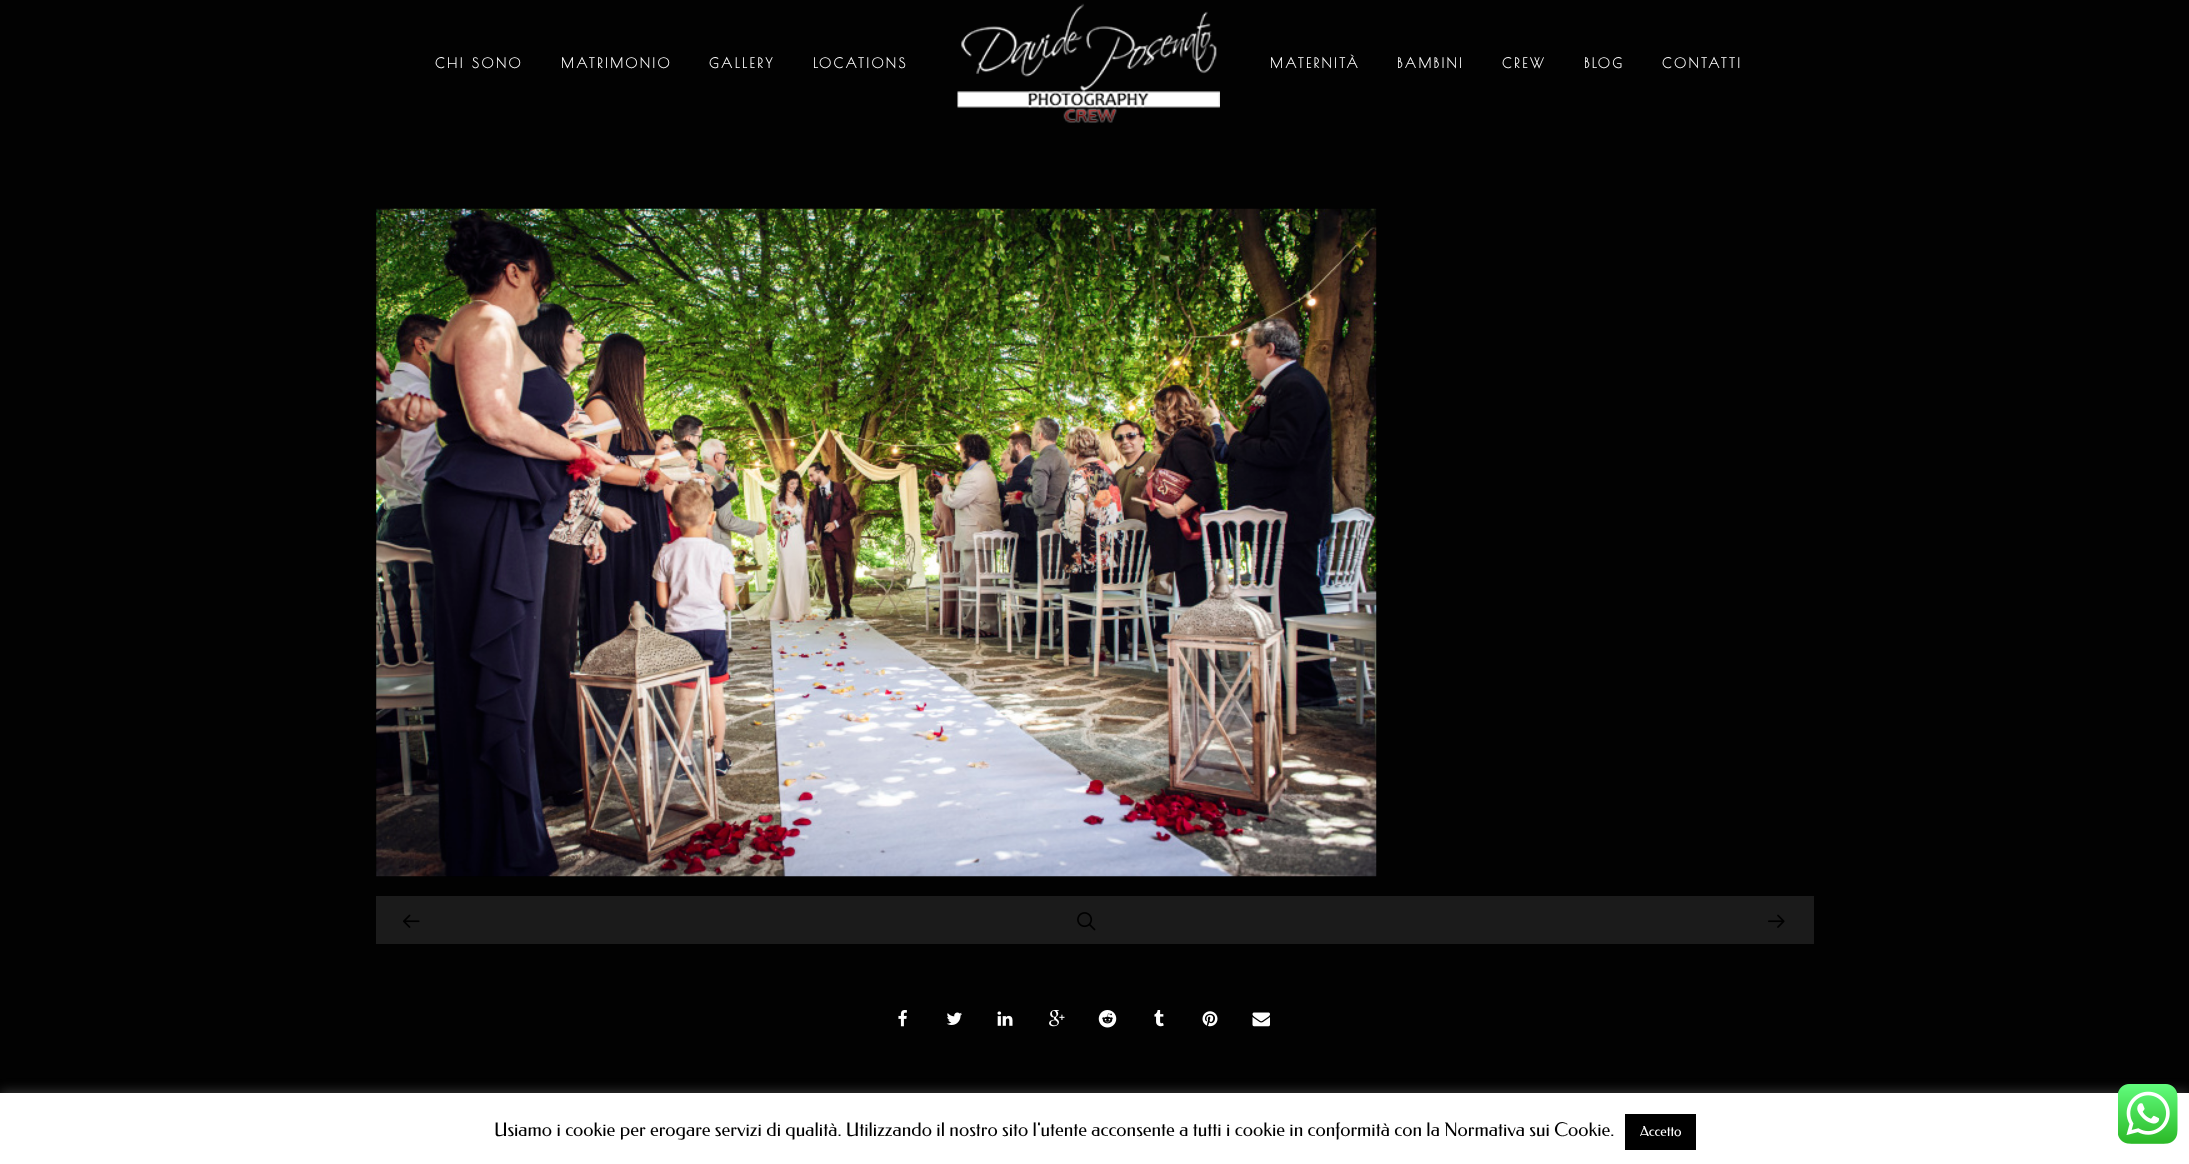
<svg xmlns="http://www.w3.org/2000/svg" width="2189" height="1164">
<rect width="100%" height="100%" fill="#020202"/>
<text x="435" y="68" style="font-family:Poiret One;font-size:13.75px;font-weight:bold;letter-spacing:2.5px;fill:#fff">CHI SONO</text>
<text x="561" y="68" style="font-family:Poiret One;font-size:13.75px;font-weight:bold;letter-spacing:2.5px;fill:#fff">MATRIMONIO</text>
<text x="709" y="68" style="font-family:Poiret One;font-size:13.75px;font-weight:bold;letter-spacing:2.5px;fill:#fff">GALLERY</text>
<text x="813" y="68" style="font-family:Poiret One;font-size:13.75px;font-weight:bold;letter-spacing:2.5px;fill:#fff">LOCATIONS</text>
<image x="957" y="3" width="263" height="120" href="media/1.png"/>
<text x="1270" y="68" style="font-family:Poiret One;font-size:13.75px;font-weight:bold;letter-spacing:2.5px;fill:#fff">MATERNITÀ</text>
<text x="1397" y="68" style="font-family:Poiret One;font-size:13.75px;font-weight:bold;letter-spacing:2.5px;fill:#fff">BAMBINI</text>
<text x="1502" y="68" style="font-family:Poiret One;font-size:13.75px;font-weight:bold;letter-spacing:2.5px;fill:#fff">CREW</text>
<text x="1584" y="68" style="font-family:Poiret One;font-size:13.75px;font-weight:bold;letter-spacing:2.5px;fill:#fff">BLOG</text>
<text x="1662" y="68" style="font-family:Poiret One;font-size:13.75px;font-weight:bold;letter-spacing:2.5px;fill:#fff">CONTATTI</text>
<image x="376" y="208" width="1001" height="669" href="media/2.png"/>
<rect x="376" y="896" width="1438" height="48" fill="#1b1b1b"/>
<image x="403" y="914" width="17" height="14" href="media/3.png"/>
<image x="1077" y="912" width="19" height="19" href="media/4.png"/>
<image x="1768" y="914" width="17" height="14" href="media/5.png"/>
<image x="898" y="1010" width="9" height="17" href="media/6.png"/>
<image x="946" y="1012" width="16" height="13" href="media/7.png"/>
<image x="997" y="1011" width="16" height="15" href="media/8.png"/>
<image x="1049" y="1010" width="16" height="17" href="media/9.png"/>
<image x="1098" y="1010" width="19" height="18" href="media/10.png"/>
<image x="1154" y="1010" width="10" height="17" href="media/11.png"/>
<image x="1202" y="1011" width="16" height="16" href="media/12.png"/>
<image x="1252" y="1012" width="18" height="15" href="media/13.png"/>
<rect y="1091" width="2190" height="73" fill="#acabab4d" filter="blur(6px)"/>
<rect y="1093" width="2189" height="71" fill="#fff"/>
<text x="494" y="1136" style="font-family:Federo;font-size:18.75px;fill:#000">Usiamo i cookie per erogare servizi di qualità. Utilizzando il nostro sito l'utente acconsente a tutti i cookie in conformità con la Normativa sui Cookie.</text>
<rect x="1625" y="1114" width="71" height="36" fill="#000"/>
<text x="1640" y="1136" style="font-family:Federo;font-size:13.75px;fill:#fff">Accetto</text>
<image x="2118" y="1084" width="60" height="60" href="media/14.png"/>
</svg>
